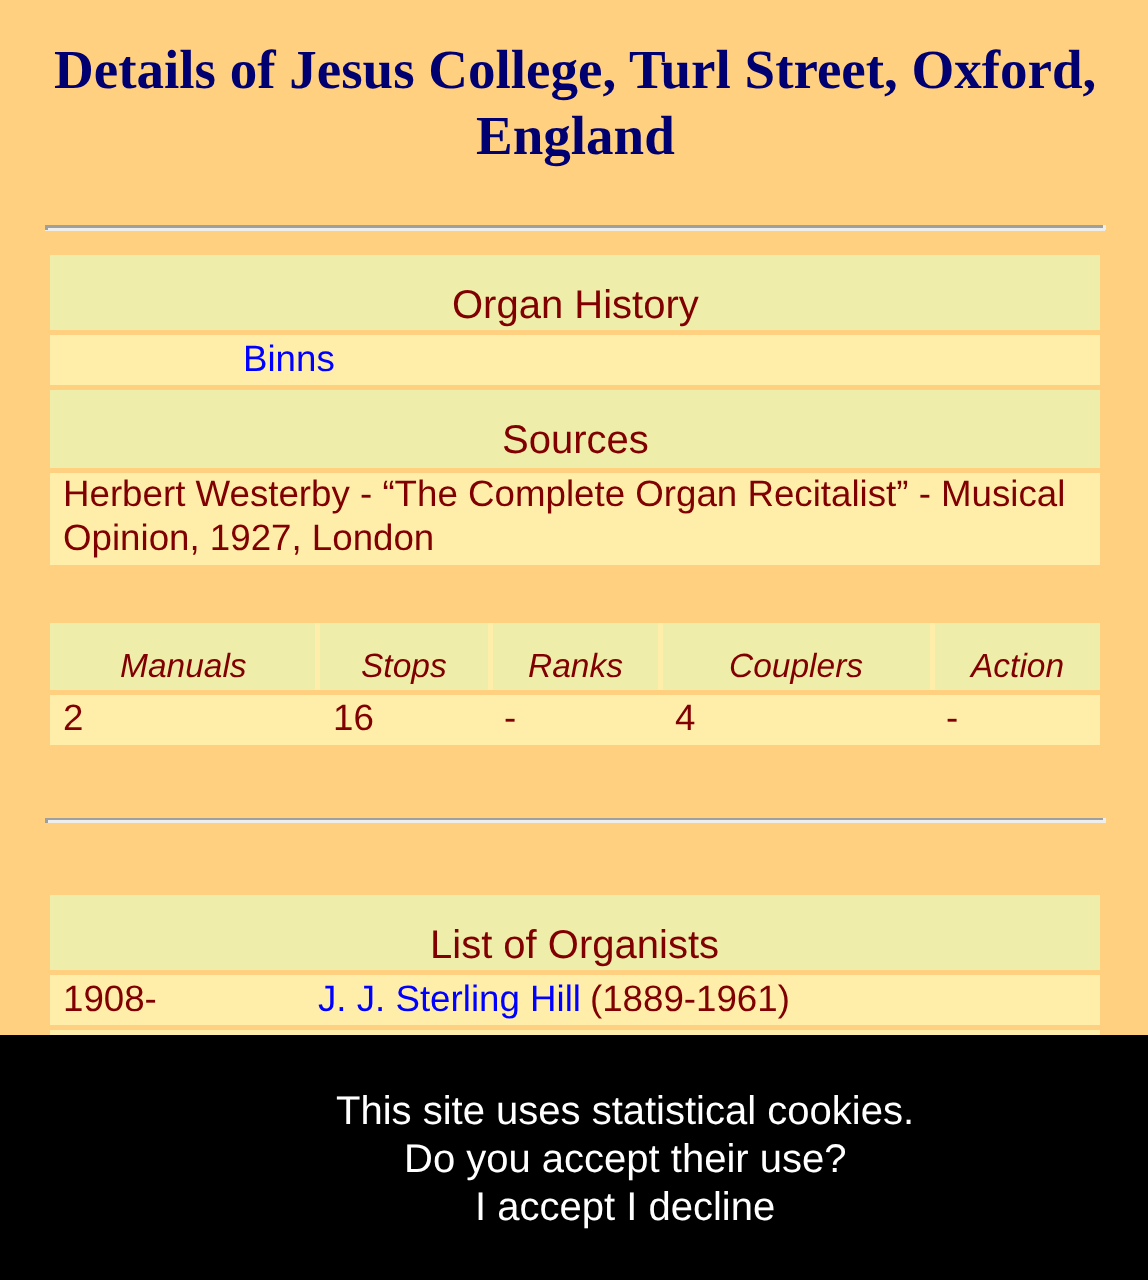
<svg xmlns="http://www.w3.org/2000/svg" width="1148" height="1280">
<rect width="100%" height="100%" fill="#ffd080"/>
<text x="54" y="88" style="font-family:Liberation Serif;font-size:55px;font-weight:bold;fill:#000070">Details of Jesus College, Turl Street, Oxford,</text>
<text x="476" y="154" style="font-family:Liberation Serif;font-size:55px;font-weight:bold;fill:#000070">England</text>
<rect x="45" y="225" width="1060" height="3" fill="#9f9f9f"/>
<rect x="1103" y="225" width="3" height="5" fill="#eee"/>
<rect x="45" y="228" width="1060" height="3" fill="#eee"/>
<rect x="45" y="225" width="3" height="5" fill="#9f9f9f"/>
<rect x="50" y="255" width="1050" height="75" fill="#eea"/>
<text x="452" y="318" style="font-family:Liberation Sans;font-size:40px;fill:#800000">Organ History</text>
<rect x="50" y="335" width="1050" height="50" fill="#fea"/>
<text x="243" y="371" style="font-family:Liberation Sans;font-size:36.7px;fill:#00f">Binns</text>
<rect x="50" y="390" width="1050" height="78" fill="#eea"/>
<text x="502" y="453" style="font-family:Liberation Sans;font-size:40px;fill:#800000">Sources</text>
<rect x="50" y="473" width="1050" height="92" fill="#fea"/>
<text x="63" y="506" style="font-family:Liberation Sans;font-size:36.7px;fill:#800000">Herbert Westerby - “The Complete Organ Recitalist” - Musical</text>
<text x="63" y="550" style="font-family:Liberation Sans;font-size:36.7px;fill:#800000">Opinion, 1927, London</text>
<rect x="315" y="623" width="620" height="67" fill="#fea"/>
<rect x="50" y="623" width="265" height="67" fill="#eea"/>
<text x="120" y="677" style="font-family:Liberation Sans;font-size:33.5px;font-style:italic;fill:#800000">Manuals</text>
<rect x="320" y="623" width="168" height="67" fill="#eea"/>
<text x="361" y="677" style="font-family:Liberation Sans;font-size:33.5px;font-style:italic;fill:#800000">Stops</text>
<rect x="493" y="623" width="165" height="67" fill="#eea"/>
<text x="528" y="677" style="font-family:Liberation Sans;font-size:33.5px;font-style:italic;fill:#800000">Ranks</text>
<rect x="663" y="623" width="267" height="67" fill="#eea"/>
<text x="729" y="677" style="font-family:Liberation Sans;font-size:33.5px;font-style:italic;fill:#800000">Couplers</text>
<rect x="935" y="623" width="165" height="67" fill="#eea"/>
<text x="971" y="677" style="font-family:Liberation Sans;font-size:33.5px;font-style:italic;fill:#800000">Action</text>
<rect x="50" y="695" width="1050" height="50" fill="#fea"/>
<text x="63" y="730" style="font-family:Liberation Sans;font-size:36.7px;fill:#800000">2</text>
<text x="333" y="730" style="font-family:Liberation Sans;font-size:36.7px;fill:#800000">16</text>
<text x="504" y="730" style="font-family:Liberation Sans;font-size:36.7px;fill:#800000">-</text>
<text x="675" y="730" style="font-family:Liberation Sans;font-size:36.7px;fill:#800000">4</text>
<text x="946" y="730" style="font-family:Liberation Sans;font-size:36.7px;fill:#800000">-</text>
<rect x="45" y="818" width="1060" height="2" fill="#9f9f9f"/>
<rect x="1103" y="818" width="3" height="5" fill="#eee"/>
<rect x="45" y="820" width="1060" height="3" fill="#eee"/>
<rect x="45" y="818" width="3" height="5" fill="#9f9f9f"/>
<rect x="50" y="895" width="1050" height="75" fill="#eea"/>
<text x="430" y="958" style="font-family:Liberation Sans;font-size:40px;fill:#800000">List of Organists</text>
<rect x="50" y="975" width="1050" height="50" fill="#fea"/>
<text x="63" y="1011" style="font-family:Liberation Sans;font-size:36.7px;fill:#800000">1908-</text>
<text x="318" y="1011" style="font-family:Liberation Sans;font-size:36.7px;fill:#00f">J. J. Sterling Hill</text>
<text x="590" y="1011" style="font-family:Liberation Sans;font-size:36.7px;fill:#800000">(1889-1961)</text>
<rect x="50" y="1030" width="1050" height="5" fill="#fea"/>
<rect y="1035" width="1148" height="245" fill="#000"/>
<text x="336" y="1124" style="font-family:Liberation Sans;font-size:40px;fill:#fff">This site uses statistical cookies.</text>
<text x="404" y="1172" style="font-family:Liberation Sans;font-size:40px;fill:#fff">Do you accept their use?</text>
<text x="475" y="1220" style="font-family:Liberation Sans;font-size:40px;fill:#fff">I accept I decline</text>
</svg>
